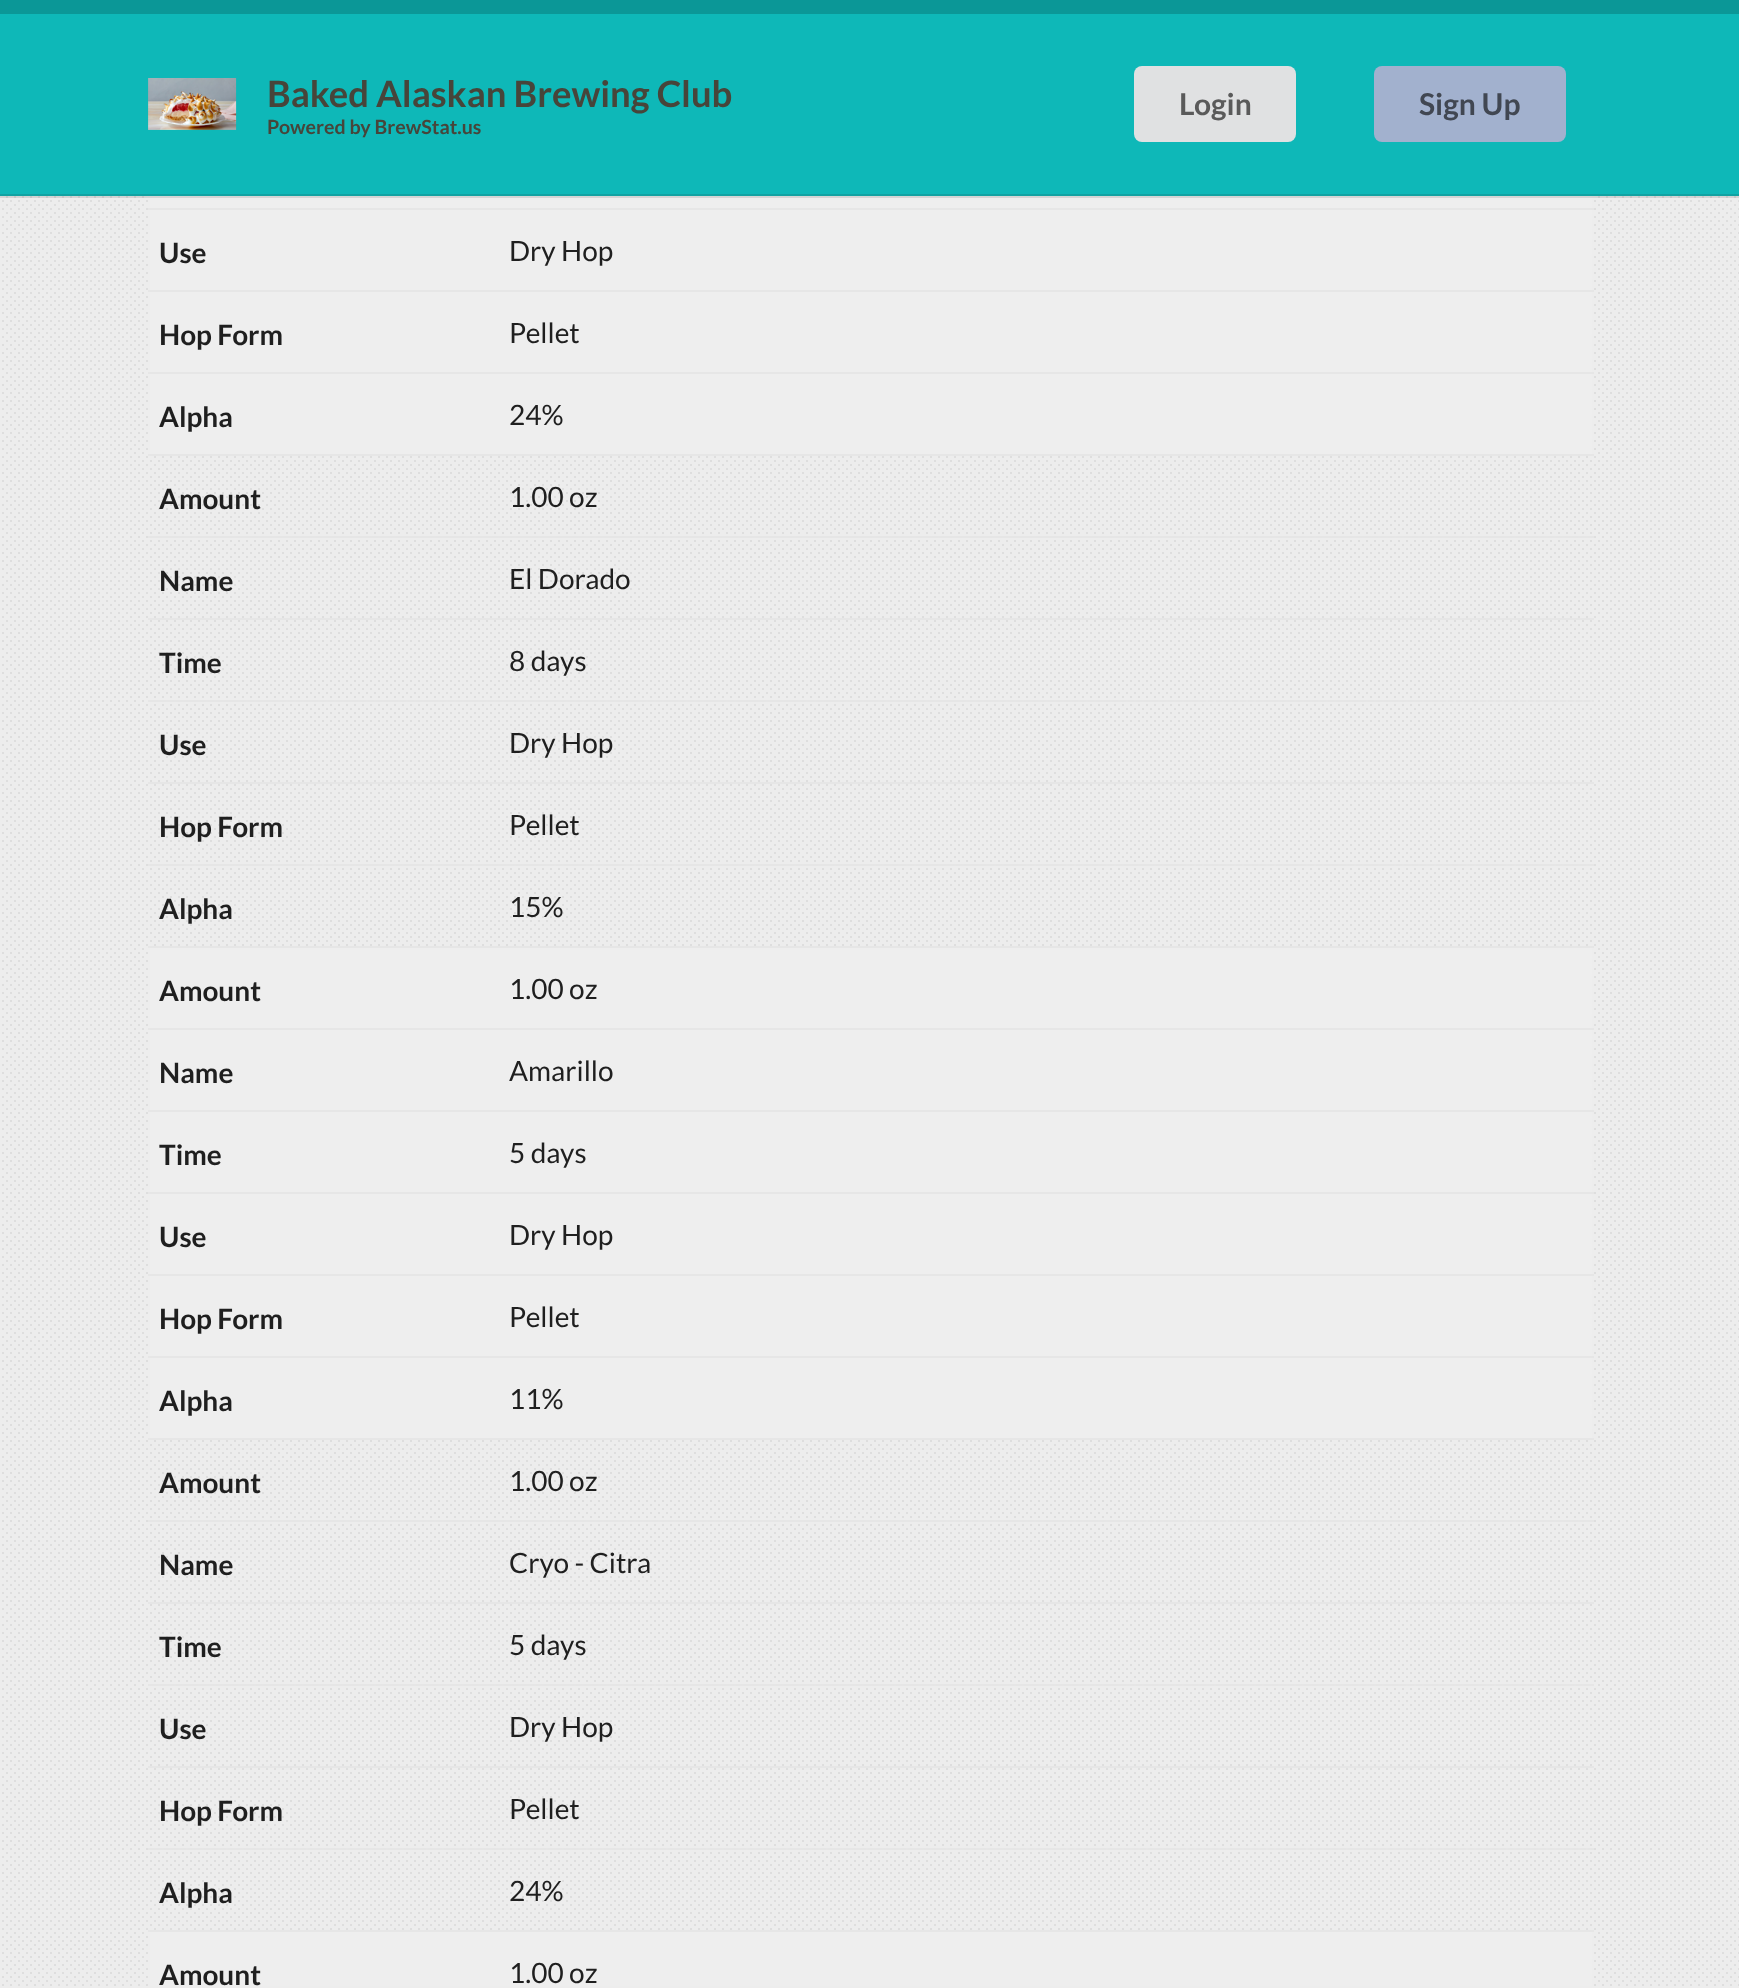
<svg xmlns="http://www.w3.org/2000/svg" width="1739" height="1988">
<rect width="100%" height="100%" fill="#ededed"/>
<image x="2" y="196" width="1737" height="1790" href="media/1.png"/>
<rect x="150" y="196" width="1442" height="258" fill="#eee"/>
<rect y="196" width="1739" height="2" fill="#0000001a"/>
<rect y="14" width="1739" height="180" fill="#0eb8b8"/>
<rect width="1739" height="14" fill="#0b9797"/>
<rect y="194" width="1739" height="2" fill="#11a2a2"/>
<image x="148" y="78" width="89" height="52" href="media/2.png"/>
<text x="267" y="107" style="font-family:Lato;font-size:36.4px;font-weight:bold;fill:#47453a">Baked Alaskan Brewing Club</text>
<text x="267" y="134" style="font-family:Lato;font-size:19.6px;font-weight:bold;fill:#47453a">Powered by BrewStat.us</text>
<rect x="1134" y="66" width="162" height="76" rx="8" fill="#e0e1e2"/>
<text x="1179" y="115" style="font-family:Lato;font-size:30px;font-weight:bold;fill:#5a5a5a">Login</text>
<rect x="1374" y="66" width="192" height="76" rx="8" fill="#a2b1ce"/>
<text x="1419" y="115" style="font-family:Lato;font-size:30px;font-weight:bold;fill:#414752">Sign Up</text>
<rect x="148" y="208" width="1446" height="2" fill="#e6e6e6"/>
<text x="159" y="263" style="font-family:Lato;font-size:28px;font-weight:bold;fill:#1f1f1f">Use</text>
<text x="509" y="261" style="font-family:Lato;font-size:28px;fill:#1f1f1f">Dry Hop</text>
<rect x="148" y="290" width="1446" height="2" fill="#e6e6e6"/>
<text x="159" y="345" style="font-family:Lato;font-size:28px;font-weight:bold;fill:#1f1f1f">Hop Form</text>
<text x="509" y="343" style="font-family:Lato;font-size:28px;fill:#1f1f1f">Pellet</text>
<rect x="148" y="372" width="1446" height="2" fill="#e6e6e6"/>
<text x="159" y="427" style="font-family:Lato;font-size:28px;font-weight:bold;fill:#1f1f1f">Alpha</text>
<text x="509" y="425" style="font-family:Lato;font-size:28px;fill:#1f1f1f">24%</text>
<rect x="148" y="454" width="1446" height="2" fill="#e6e6e6"/>
<text x="159" y="509" style="font-family:Lato;font-size:28px;font-weight:bold;fill:#1f1f1f">Amount</text>
<text x="509" y="507" style="font-family:Lato;font-size:28px;fill:#1f1f1f">1.00 oz</text>
<rect x="148" y="536" width="1446" height="2" fill="#e6e6e6"/>
<text x="159" y="591" style="font-family:Lato;font-size:28px;font-weight:bold;fill:#1f1f1f">Name</text>
<text x="509" y="589" style="font-family:Lato;font-size:28px;fill:#1f1f1f">El Dorado</text>
<rect x="148" y="618" width="1446" height="2" fill="#e6e6e6"/>
<text x="159" y="673" style="font-family:Lato;font-size:28px;font-weight:bold;fill:#1f1f1f">Time</text>
<text x="509" y="671" style="font-family:Lato;font-size:28px;fill:#1f1f1f">8 days</text>
<rect x="148" y="700" width="1446" height="2" fill="#e6e6e6"/>
<text x="159" y="755" style="font-family:Lato;font-size:28px;font-weight:bold;fill:#1f1f1f">Use</text>
<text x="509" y="753" style="font-family:Lato;font-size:28px;fill:#1f1f1f">Dry Hop</text>
<rect x="148" y="782" width="1446" height="2" fill="#e6e6e6"/>
<text x="159" y="837" style="font-family:Lato;font-size:28px;font-weight:bold;fill:#1f1f1f">Hop Form</text>
<text x="509" y="835" style="font-family:Lato;font-size:28px;fill:#1f1f1f">Pellet</text>
<rect x="148" y="864" width="1446" height="2" fill="#e6e6e6"/>
<text x="159" y="919" style="font-family:Lato;font-size:28px;font-weight:bold;fill:#1f1f1f">Alpha</text>
<text x="509" y="917" style="font-family:Lato;font-size:28px;fill:#1f1f1f">15%</text>
<rect x="150" y="948" width="1442" height="490" fill="#eee"/>
<rect x="148" y="946" width="1446" height="2" fill="#e6e6e6"/>
<text x="159" y="1001" style="font-family:Lato;font-size:28px;font-weight:bold;fill:#1f1f1f">Amount</text>
<text x="509" y="999" style="font-family:Lato;font-size:28px;fill:#1f1f1f">1.00 oz</text>
<rect x="148" y="1028" width="1446" height="2" fill="#e6e6e6"/>
<text x="159" y="1083" style="font-family:Lato;font-size:28px;font-weight:bold;fill:#1f1f1f">Name</text>
<text x="509" y="1081" style="font-family:Lato;font-size:28px;fill:#1f1f1f">Amarillo</text>
<rect x="148" y="1110" width="1446" height="2" fill="#e6e6e6"/>
<text x="159" y="1165" style="font-family:Lato;font-size:28px;font-weight:bold;fill:#1f1f1f">Time</text>
<text x="509" y="1163" style="font-family:Lato;font-size:28px;fill:#1f1f1f">5 days</text>
<rect x="148" y="1192" width="1446" height="2" fill="#e6e6e6"/>
<text x="159" y="1247" style="font-family:Lato;font-size:28px;font-weight:bold;fill:#1f1f1f">Use</text>
<text x="509" y="1245" style="font-family:Lato;font-size:28px;fill:#1f1f1f">Dry Hop</text>
<rect x="148" y="1274" width="1446" height="2" fill="#e6e6e6"/>
<text x="159" y="1329" style="font-family:Lato;font-size:28px;font-weight:bold;fill:#1f1f1f">Hop Form</text>
<text x="509" y="1327" style="font-family:Lato;font-size:28px;fill:#1f1f1f">Pellet</text>
<rect x="148" y="1356" width="1446" height="2" fill="#e6e6e6"/>
<text x="159" y="1411" style="font-family:Lato;font-size:28px;font-weight:bold;fill:#1f1f1f">Alpha</text>
<text x="509" y="1409" style="font-family:Lato;font-size:28px;fill:#1f1f1f">11%</text>
<rect x="148" y="1438" width="1446" height="2" fill="#e6e6e6"/>
<text x="159" y="1493" style="font-family:Lato;font-size:28px;font-weight:bold;fill:#1f1f1f">Amount</text>
<text x="509" y="1491" style="font-family:Lato;font-size:28px;fill:#1f1f1f">1.00 oz</text>
<rect x="148" y="1520" width="1446" height="2" fill="#e6e6e6"/>
<text x="159" y="1575" style="font-family:Lato;font-size:28px;font-weight:bold;fill:#1f1f1f">Name</text>
<text x="509" y="1573" style="font-family:Lato;font-size:28px;fill:#1f1f1f">Cryo - Citra</text>
<rect x="148" y="1602" width="1446" height="2" fill="#e6e6e6"/>
<text x="159" y="1657" style="font-family:Lato;font-size:28px;font-weight:bold;fill:#1f1f1f">Time</text>
<text x="509" y="1655" style="font-family:Lato;font-size:28px;fill:#1f1f1f">5 days</text>
<rect x="148" y="1684" width="1446" height="2" fill="#e6e6e6"/>
<text x="159" y="1739" style="font-family:Lato;font-size:28px;font-weight:bold;fill:#1f1f1f">Use</text>
<text x="509" y="1737" style="font-family:Lato;font-size:28px;fill:#1f1f1f">Dry Hop</text>
<rect x="148" y="1766" width="1446" height="2" fill="#e6e6e6"/>
<text x="159" y="1821" style="font-family:Lato;font-size:28px;font-weight:bold;fill:#1f1f1f">Hop Form</text>
<text x="509" y="1819" style="font-family:Lato;font-size:28px;fill:#1f1f1f">Pellet</text>
<rect x="148" y="1848" width="1446" height="2" fill="#e6e6e6"/>
<text x="159" y="1903" style="font-family:Lato;font-size:28px;font-weight:bold;fill:#1f1f1f">Alpha</text>
<text x="509" y="1901" style="font-family:Lato;font-size:28px;fill:#1f1f1f">24%</text>
<rect x="150" y="1932" width="1442" height="54" fill="#eee"/>
<rect x="148" y="1930" width="1446" height="2" fill="#e6e6e6"/>
<text x="159" y="1985" style="font-family:Lato;font-size:28px;font-weight:bold;fill:#1f1f1f">Amount</text>
<text x="509" y="1983" style="font-family:Lato;font-size:28px;fill:#1f1f1f">1.00 oz</text>
</svg>
